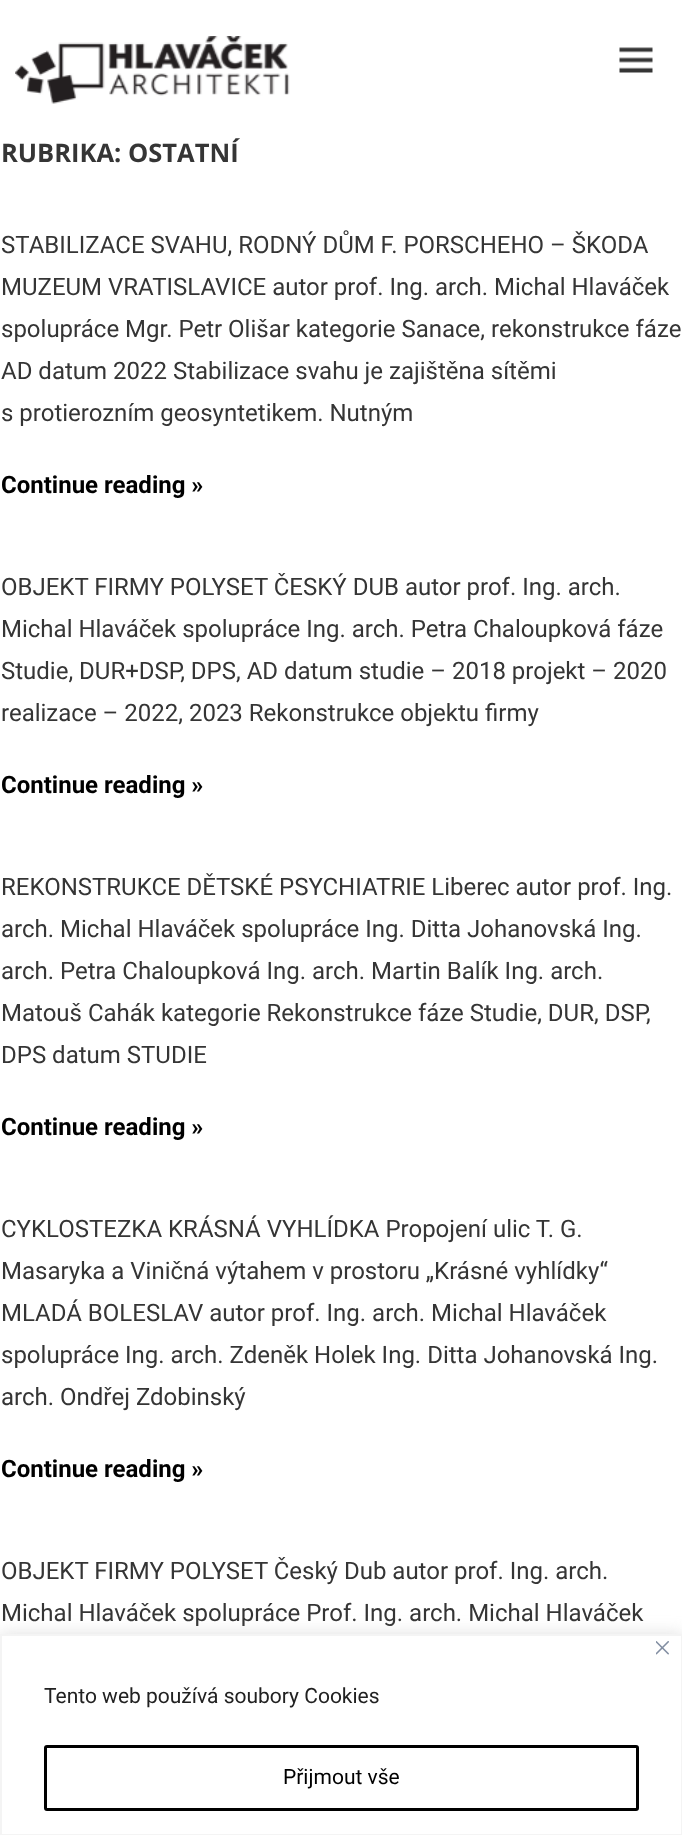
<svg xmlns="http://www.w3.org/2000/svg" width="682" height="1835">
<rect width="100%" height="100%" fill="#fff"/>
<image x="15" y="36" width="275" height="68" href="media/1.png"/>
<image x="619" y="47" width="34" height="26" href="media/2.png"/>
<text x="1" y="162" style="font-family:Open Sans;font-size:25.5px;font-weight:bold;fill:#353535">RUBRIKA: OSTATNÍ</text>
<text x="1" y="253" style="font-family:Roboto;font-size:24px;fill:#353535">STABILIZACE SVAHU, RODNÝ DŮM F. PORSCHEHO – ŠKODA</text>
<text x="1" y="295" style="font-family:Roboto;font-size:24px;fill:#353535">MUZEUM VRATISLAVICE autor prof. Ing. arch. Michal Hlaváček</text>
<text x="1" y="337" style="font-family:Roboto;font-size:24px;fill:#353535">spolupráce Mgr. Petr Olišar kategorie Sanace, rekonstrukce fáze</text>
<text x="1" y="379" style="font-family:Roboto;font-size:24px;fill:#353535">AD datum 2022 Stabilizace svahu je zajištěna sítěmi</text>
<text x="1" y="421" style="font-family:Roboto;font-size:24px;fill:#353535">s protierozním geosyntetikem. Nutným</text>
<text x="1" y="493" style="font-family:Roboto;font-size:24px;font-weight:bold;fill:#000">Continue reading »</text>
<text x="1" y="595" style="font-family:Roboto;font-size:24px;fill:#353535">OBJEKT FIRMY POLYSET ČESKÝ DUB autor prof. Ing. arch.</text>
<text x="1" y="637" style="font-family:Roboto;font-size:24px;fill:#353535">Michal Hlaváček spolupráce Ing. arch. Petra Chaloupková fáze</text>
<text x="1" y="679" style="font-family:Roboto;font-size:24px;fill:#353535">Studie, DUR+DSP, DPS, AD datum studie – 2018 projekt – 2020</text>
<text x="1" y="721" style="font-family:Roboto;font-size:24px;fill:#353535">realizace – 2022, 2023 Rekonstrukce objektu firmy</text>
<text x="1" y="793" style="font-family:Roboto;font-size:24px;font-weight:bold;fill:#000">Continue reading »</text>
<text x="1" y="895" style="font-family:Roboto;font-size:24px;fill:#353535">REKONSTRUKCE DĚTSKÉ PSYCHIATRIE Liberec autor prof. Ing.</text>
<text x="1" y="937" style="font-family:Roboto;font-size:24px;fill:#353535">arch. Michal Hlaváček spolupráce Ing. Ditta Johanovská Ing.</text>
<text x="1" y="979" style="font-family:Roboto;font-size:24px;fill:#353535">arch. Petra Chaloupková Ing. arch. Martin Balík Ing. arch.</text>
<text x="1" y="1021" style="font-family:Roboto;font-size:24px;fill:#353535">Matouš Cahák kategorie Rekonstrukce fáze Studie, DUR, DSP,</text>
<text x="1" y="1063" style="font-family:Roboto;font-size:24px;fill:#353535">DPS datum STUDIE</text>
<text x="1" y="1135" style="font-family:Roboto;font-size:24px;font-weight:bold;fill:#000">Continue reading »</text>
<text x="1" y="1237" style="font-family:Roboto;font-size:24px;fill:#353535">CYKLOSTEZKA KRÁSNÁ VYHLÍDKA Propojení ulic T. G.</text>
<text x="1" y="1279" style="font-family:Roboto;font-size:24px;fill:#353535">Masaryka a Viničná výtahem v prostoru „Krásné vyhlídky“</text>
<text x="1" y="1321" style="font-family:Roboto;font-size:24px;fill:#353535">MLADÁ BOLESLAV autor prof. Ing. arch. Michal Hlaváček</text>
<text x="1" y="1363" style="font-family:Roboto;font-size:24px;fill:#353535">spolupráce Ing. arch. Zdeněk Holek Ing. Ditta Johanovská Ing.</text>
<text x="1" y="1405" style="font-family:Roboto;font-size:24px;fill:#353535">arch. Ondřej Zdobinský</text>
<text x="1" y="1477" style="font-family:Roboto;font-size:24px;font-weight:bold;fill:#000">Continue reading »</text>
<text x="1" y="1579" style="font-family:Roboto;font-size:24px;fill:#353535">OBJEKT FIRMY POLYSET Český Dub autor prof. Ing. arch.</text>
<text x="1" y="1621" style="font-family:Roboto;font-size:24px;fill:#353535">Michal Hlaváček spolupráce Prof. Ing. arch. Michal Hlaváček</text>
<rect y="1632" width="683" height="203" fill="#acabab4d" filter="blur(7.5px)"/>
<rect x="1" y="1635" width="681" height="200" fill="#fff" stroke="#f4f4f4" stroke-width="2"/>
<image x="656" y="1641" width="13" height="14" href="media/3.png"/>
<text x="44" y="1703" style="font-family:Roboto;font-size:21px;fill:#212121">Tento web používá soubory Cookies</text>
<rect x="45.5" y="1746.5" width="592" height="63" rx="1.5" fill="none" stroke="#000" stroke-width="3"/>
<text x="283" y="1784" style="font-family:Roboto;font-size:21px;fill:#000">Přijmout vše</text>
</svg>
